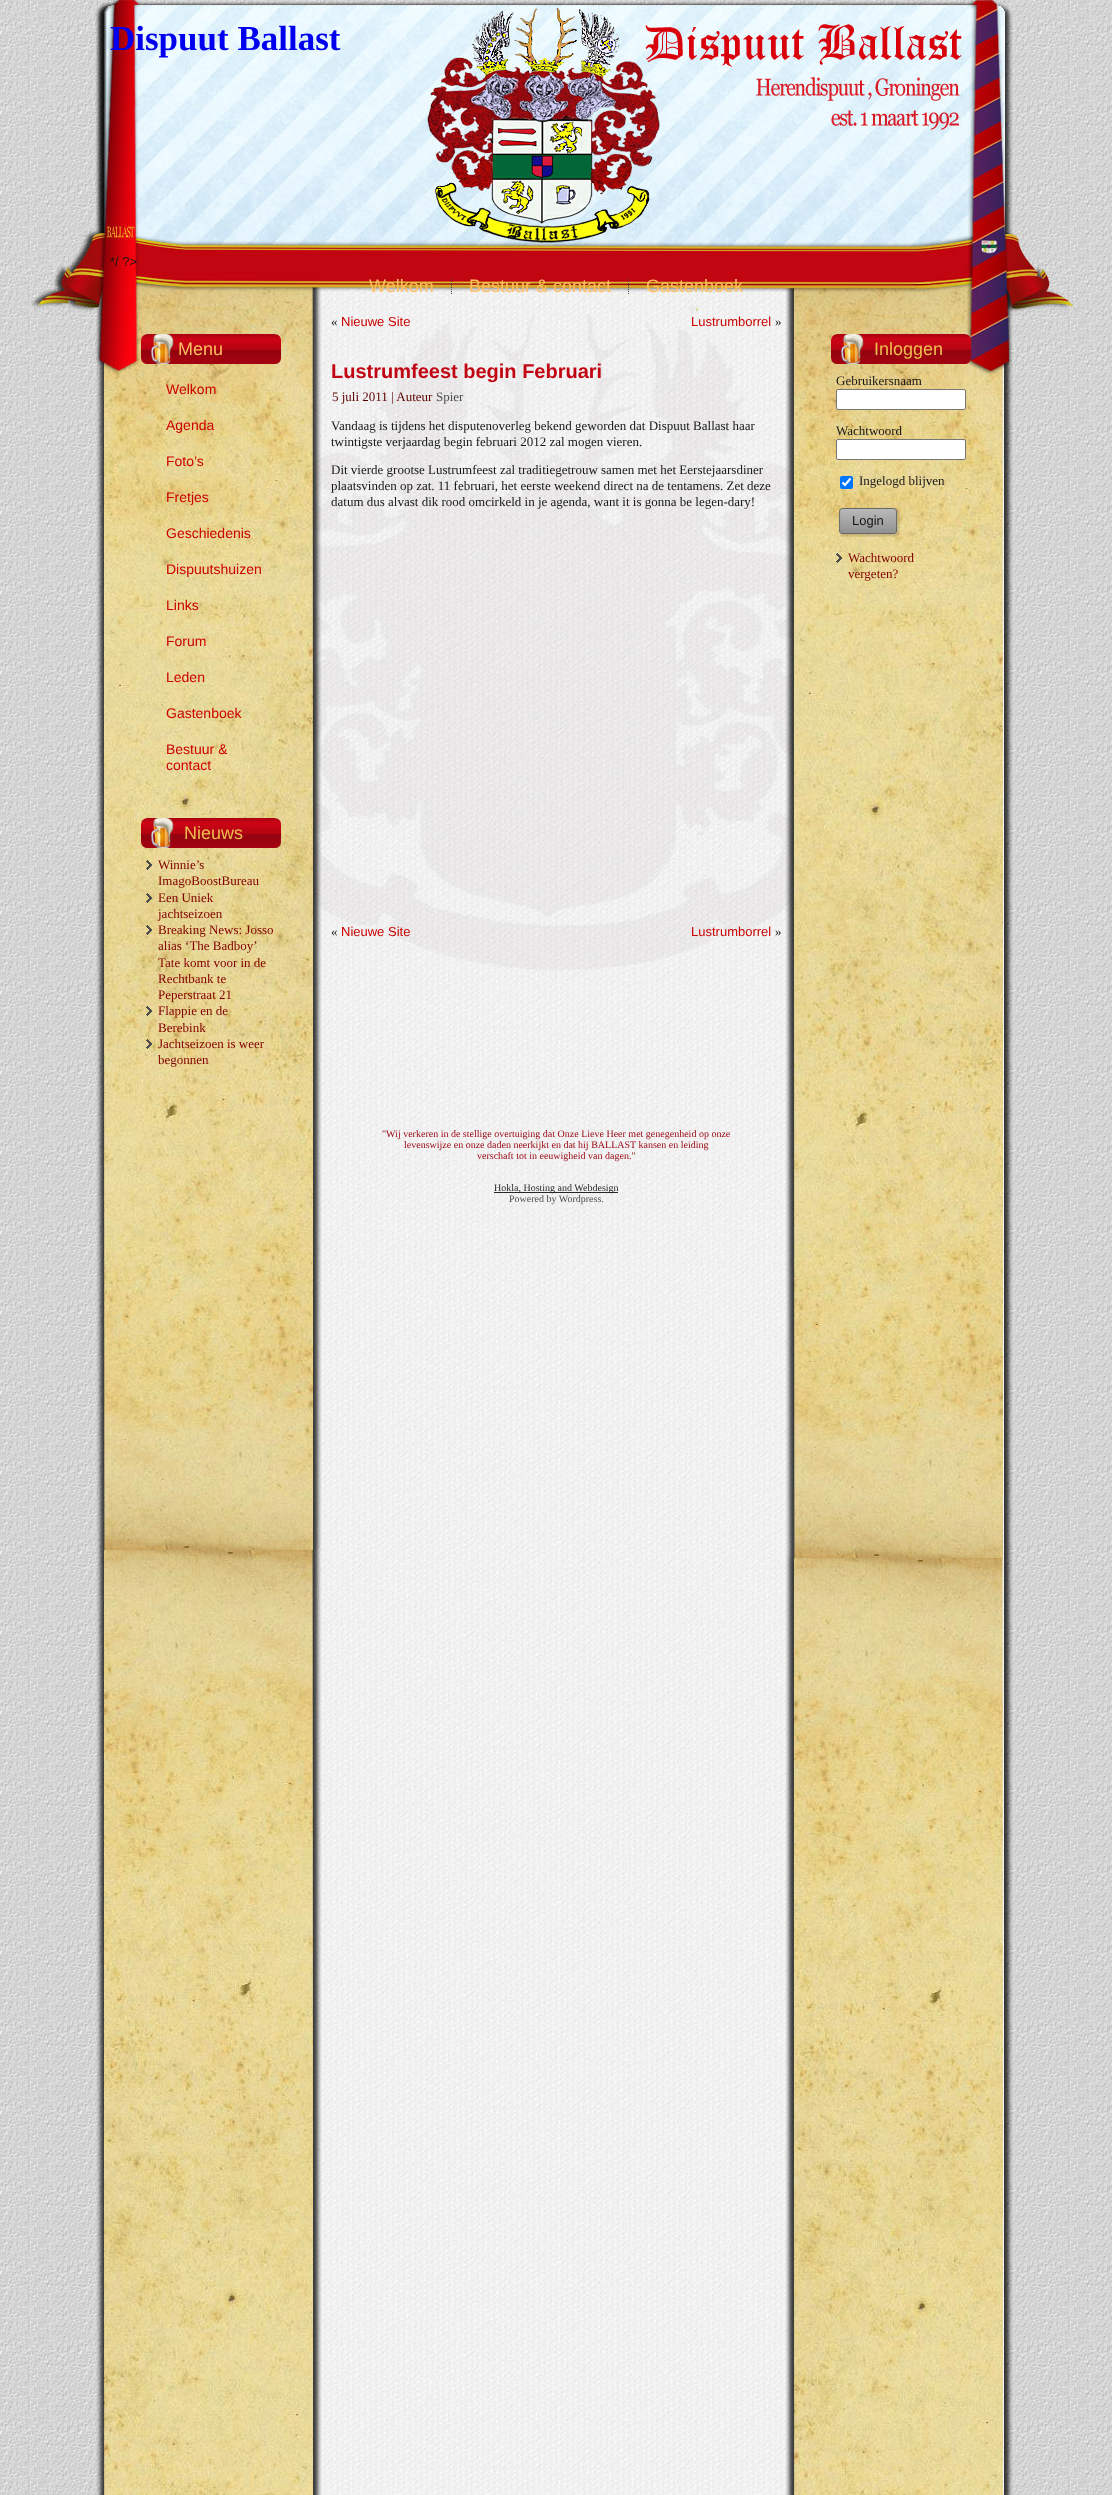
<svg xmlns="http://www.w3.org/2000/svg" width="1112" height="2495">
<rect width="100%" height="100%" fill="#fff"/>
<image x="0" y="0" width="1112" height="2495" href="media/1.png"/>
<text x="110" y="50" style="font-family:Liberation Serif;font-size:35px;font-weight:bold;fill:#00e">Dispuut Ballast</text>
<text x="110" y="266" style="font-family:Liberation Sans;font-size:13px;fill:#171717">*/ ?&gt;</text>
<text x="369" y="292" style="font-family:Liberation Sans;font-size:18px;fill:#ffbd61">Welkom</text>
<image x="451" y="279" width="1" height="15" href="media/2.png"/>
<text x="469" y="292" style="font-family:Liberation Sans;font-size:18px;fill:#ffbd61">Bestuur &amp; contact</text>
<image x="628" y="279" width="1" height="15" href="media/3.png"/>
<text x="646" y="292" style="font-family:Liberation Sans;font-size:18px;fill:#ffbd61">Gastenboek</text>
<image x="141" y="334" width="103" height="30" href="media/4.png"/>
<image x="244" y="334" width="37" height="30" href="media/5.png"/>
<text x="178" y="355" style="font-family:Liberation Sans;font-size:18px;fill:#ffbd61">Menu</text>
<text x="166" y="394" style="font-family:Liberation Sans;font-size:14px;fill:#c00">Welkom</text>
<text x="166" y="430" style="font-family:Liberation Sans;font-size:14px;fill:#c00">Agenda</text>
<text x="166" y="466" style="font-family:Liberation Sans;font-size:14px;fill:#c00">Foto’s</text>
<text x="166" y="502" style="font-family:Liberation Sans;font-size:14px;fill:#c00">Fretjes</text>
<text x="166" y="538" style="font-family:Liberation Sans;font-size:14px;fill:#c00">Geschiedenis</text>
<text x="166" y="574" style="font-family:Liberation Sans;font-size:14px;fill:#c00">Dispuutshuizen</text>
<text x="166" y="610" style="font-family:Liberation Sans;font-size:14px;fill:#c00">Links</text>
<text x="166" y="646" style="font-family:Liberation Sans;font-size:14px;fill:#c00">Forum</text>
<text x="166" y="682" style="font-family:Liberation Sans;font-size:14px;fill:#c00">Leden</text>
<text x="166" y="718" style="font-family:Liberation Sans;font-size:14px;fill:#c00">Gastenboek</text>
<text x="166" y="754" style="font-family:Liberation Sans;font-size:14px;fill:#c00">Bestuur &amp;</text>
<text x="166" y="770" style="font-family:Liberation Sans;font-size:14px;fill:#c00">contact</text>
<image x="141" y="818" width="103" height="30" href="media/6.png"/>
<image x="244" y="818" width="37" height="30" href="media/7.png"/>
<text x="184" y="839" style="font-family:Liberation Sans;font-size:18px;fill:#f1be50">Nieuws</text>
<image x="146" y="860" width="6" height="10" href="media/8.png"/>
<text x="158" y="869" style="font-family:Liberation Serif;font-size:13px;fill:#800000">Winnie’s</text>
<text x="158" y="885" style="font-family:Liberation Serif;font-size:13px;fill:#800000">ImagoBoostBureau</text>
<image x="146" y="893" width="6" height="10" href="media/9.png"/>
<text x="158" y="902" style="font-family:Liberation Serif;font-size:13px;fill:#800000">Een Uniek</text>
<text x="158" y="918" style="font-family:Liberation Serif;font-size:13px;fill:#800000">jachtseizoen</text>
<image x="146" y="925" width="6" height="10" href="media/10.png"/>
<text x="158" y="934" style="font-family:Liberation Serif;font-size:13px;fill:#800000">Breaking News: Josso</text>
<text x="158" y="950" style="font-family:Liberation Serif;font-size:13px;fill:#800000">alias ‘The Badboy’</text>
<text x="158" y="967" style="font-family:Liberation Serif;font-size:13px;fill:#800000">Tate komt voor in de</text>
<text x="158" y="983" style="font-family:Liberation Serif;font-size:13px;fill:#800000">Rechtbank te</text>
<text x="158" y="999" style="font-family:Liberation Serif;font-size:13px;fill:#800000">Peperstraat 21</text>
<image x="146" y="1006" width="6" height="10" href="media/11.png"/>
<text x="158" y="1015" style="font-family:Liberation Serif;font-size:13px;fill:#800000">Flappie en de</text>
<text x="158" y="1032" style="font-family:Liberation Serif;font-size:13px;fill:#800000">Berebink</text>
<image x="146" y="1039" width="6" height="10" href="media/12.png"/>
<text x="158" y="1048" style="font-family:Liberation Serif;font-size:13px;fill:#800000">Jachtseizoen is weer</text>
<text x="158" y="1064" style="font-family:Liberation Serif;font-size:13px;fill:#800000">begonnen</text>
<text x="331" y="326" style="font-family:Liberation Serif;font-size:13px;fill:#171717">«</text>
<text x="341" y="326" style="font-family:Liberation Sans;font-size:13px;fill:#c00">Nieuwe Site</text>
<text x="691" y="326" style="font-family:Liberation Sans;font-size:13px;fill:#c00">Lustrumborrel</text>
<text x="775" y="326" style="font-family:Liberation Serif;font-size:13px;fill:#171717">»</text>
<text x="331" y="378" style="font-family:Liberation Sans;font-size:20px;font-weight:bold;fill:#c20512">Lustrumfeest begin Februari</text>
<text x="332" y="401" style="font-family:Liberation Serif;font-size:13px;fill:#5c0000">5 juli 2011 | Auteur</text>
<text x="436" y="401" style="font-family:Liberation Serif;font-size:13px;fill:#4d4d4d">Spier</text>
<text x="331" y="430" style="font-family:Liberation Serif;font-size:13px;fill:#171717">Vandaag is tijdens het disputenoverleg bekend geworden dat Dispuut Ballast haar</text>
<text x="331" y="446" style="font-family:Liberation Serif;font-size:13px;fill:#171717">twintigste verjaardag begin februari 2012 zal mogen vieren.</text>
<text x="331" y="474" style="font-family:Liberation Serif;font-size:13px;fill:#171717">Dit vierde grootse Lustrumfeest zal traditiegetrouw samen met het Eerstejaarsdiner</text>
<text x="331" y="490" style="font-family:Liberation Serif;font-size:13px;fill:#171717">plaatsvinden op zat. 11 februari, het eerste weekend direct na de tentamens. Zet deze</text>
<text x="331" y="506" style="font-family:Liberation Serif;font-size:13px;fill:#171717">datum dus alvast dik rood omcirkeld in je agenda, want it is gonna be legen-dary!</text>
<text x="331" y="936" style="font-family:Liberation Serif;font-size:13px;fill:#171717">«</text>
<text x="341" y="936" style="font-family:Liberation Sans;font-size:13px;fill:#c00">Nieuwe Site</text>
<text x="691" y="936" style="font-family:Liberation Sans;font-size:13px;fill:#c00">Lustrumborrel</text>
<text x="775" y="936" style="font-family:Liberation Serif;font-size:13px;fill:#171717">»</text>
<image x="831" y="334" width="103" height="30" href="media/13.png"/>
<image x="934" y="334" width="37" height="30" href="media/14.png"/>
<text x="874" y="355" style="font-family:Liberation Sans;font-size:18px;fill:#f1be50">Inloggen</text>
<text x="836" y="385" style="font-family:Liberation Serif;font-size:13px;fill:#171717">Gebruikersnaam</text>
<rect x="836.5" y="389.5" width="129" height="20" rx="1.5" fill="#fff" stroke="#767676"/>
<text x="836" y="435" style="font-family:Liberation Serif;font-size:13px;fill:#171717">Wachtwoord</text>
<rect x="836.5" y="439.5" width="129" height="20" rx="1.5" fill="#fff" stroke="#767676"/>
<rect x="840" y="476" width="13" height="13" rx="2" fill="#0075ff"/>
<path d="M842.5 482.5l2.5 2.5l5.5-6.5" fill="none" stroke="#fff" stroke-width="2.1"/>
<text x="859" y="485" style="font-family:Liberation Serif;font-size:13px;fill:#171717">Ingelogd blijven</text>
<image x="838" y="507" width="52" height="30" href="media/15.png"/>
<image x="890" y="507" width="10" height="30" href="media/16.png"/>
<text x="852" y="525" style="font-family:Liberation Sans;font-size:13px;fill:#171717">Login</text>
<image x="836" y="553" width="6" height="10" href="media/17.png"/>
<text x="848" y="562" style="font-family:Liberation Serif;font-size:13px;fill:#800000">Wachtwoord</text>
<text x="848" y="578" style="font-family:Liberation Serif;font-size:13px;fill:#800000">vergeten?</text>
<text x="382" y="1137" style="font-family:Liberation Serif;font-size:10px;fill:#990310">"Wij verkeren in de stellige overtuiging dat Onze Lieve Heer met genegenheid op onze</text>
<text x="404" y="1148" style="font-family:Liberation Serif;font-size:10px;fill:#990310">levenswijze en onze daden neerkijkt en dat hij BALLAST kansen en leiding</text>
<text x="477" y="1159" style="font-family:Liberation Serif;font-size:10px;fill:#990310">verschaft tot in eeuwigheid van dagen."</text>
<rect x="494" y="1192" width="124" height="1" fill="#272727"/>
<text x="494" y="1191" style="font-family:Liberation Serif;font-size:10px;fill:#272727">Hokla, Hosting and Webdesign</text>
<text x="509" y="1202" style="font-family:Liberation Serif;font-size:10px;fill:#4d4d4d">Powered by Wordpress.</text>
</svg>
